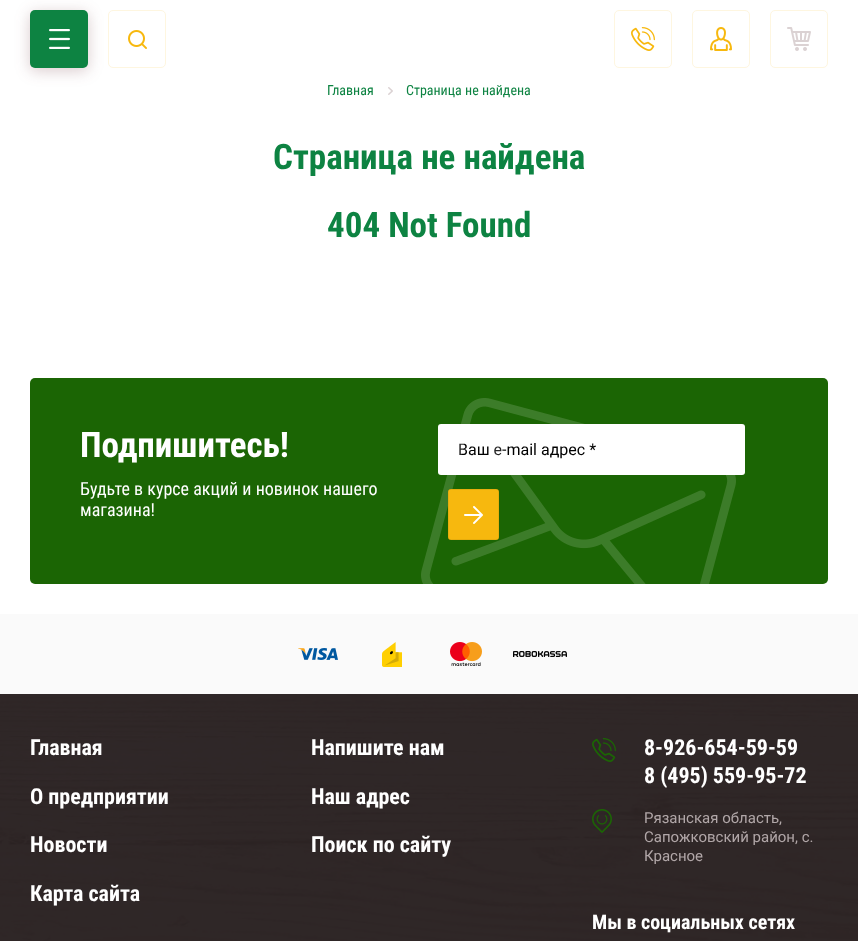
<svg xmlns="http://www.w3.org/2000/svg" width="858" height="941">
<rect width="100%" height="100%" fill="#fff"/>
<rect x="30" y="13" width="58" height="58" rx="5" fill="#5d20253b" filter="blur(7.5px)"/>
<rect x="30" y="10" width="58" height="58" rx="5" fill="#0d8342"/>
<image x="49" y="29" width="21" height="20" href="media/1.png"/>
<rect x="108.5" y="10.5" width="57" height="57" rx="4.5" fill="none" stroke="#fef6e0"/>
<image x="128" y="30" width="19" height="19" href="media/2.png"/>
<rect x="614.5" y="10.5" width="57" height="57" rx="4.5" fill="none" stroke="#fef6e0"/>
<image x="631" y="27" width="24" height="24" href="media/3.png"/>
<rect x="692.5" y="10.5" width="57" height="57" rx="4.5" fill="none" stroke="#fef6e0"/>
<image x="710" y="27" width="22" height="24" href="media/4.png"/>
<rect x="770.5" y="10.5" width="57" height="57" rx="4.5" fill="none" stroke="#fef6e0"/>
<image x="787" y="27" width="24" height="24" href="media/5.png"/>
<text x="327" y="95" style="font-family:Roboto Condensed;font-size:14px;fill:#0d8342">Главная</text>
<image x="388" y="87" width="5" height="8" href="media/6.png"/>
<text x="406" y="95" style="font-family:Roboto Condensed;font-size:14px;fill:#0d8342">Страница не найдена</text>
<text x="273" y="169" style="font-family:Roboto Condensed;font-size:35px;font-weight:bold;fill:#0d8342">Страница не найдена</text>
<text x="327" y="237" style="font-family:Roboto Condensed;font-size:35px;font-weight:bold;fill:#0d8342">404 Not Found</text>
<rect x="30" y="378" width="798" height="206" rx="5" fill="#1b6504"/>
<text x="80" y="457" style="font-family:Roboto Condensed;font-size:35px;font-weight:bold;fill:#fff">Подпишитесь!</text>
<text x="80" y="495" style="font-family:Roboto Condensed;font-size:18px;fill:#fff">Будьте в курсе акций и новинок нашего</text>
<text x="80" y="516" style="font-family:Roboto Condensed;font-size:18px;fill:#fff">магазина!</text>
<rect x="438" y="424" width="307" height="51" rx="3" fill="#fff"/>
<text x="458" y="455" style="font-family:Roboto;font-size:16px;fill:#000">Ваш e-mail адрес *</text>
<image x="421" y="398" width="315" height="186" href="media/7.png"/>
<rect x="448" y="489" width="51" height="51" rx="3" fill="#f7b80e"/>
<rect x="448.5" y="489.5" width="50" height="50" fill="none" stroke="#0000000f"/>
<image x="464" y="506" width="19" height="18" href="media/8.png"/>
<rect y="614" width="858" height="80" fill="#fafafa"/>
<image x="298" y="648" width="40" height="12" href="media/9.png"/>
<image x="382" y="642" width="20" height="25" href="media/10.png"/>
<image x="450" y="642" width="32" height="24" href="media/11.png"/>
<image x="513" y="651" width="54" height="6" href="media/12.png"/>
<rect y="694" width="858" height="247" fill="#251c1d"/>
<image x="0" y="694" width="858" height="247" href="media/13.png"/>
<text x="30" y="755" style="font-family:Roboto Condensed;font-size:22px;font-weight:bold;fill:#fff">Главная</text>
<text x="30" y="804" style="font-family:Roboto Condensed;font-size:22px;font-weight:bold;fill:#fff">О предприятии</text>
<text x="30" y="852" style="font-family:Roboto Condensed;font-size:22px;font-weight:bold;fill:#fff">Новости</text>
<text x="311" y="755" style="font-family:Roboto Condensed;font-size:22px;font-weight:bold;fill:#fff">Напишите нам</text>
<text x="311" y="804" style="font-family:Roboto Condensed;font-size:22px;font-weight:bold;fill:#fff">Наш адрес</text>
<text x="311" y="852" style="font-family:Roboto Condensed;font-size:22px;font-weight:bold;fill:#fff">Поиск по сайту</text>
<text x="30" y="901" style="font-family:Roboto Condensed;font-size:22px;font-weight:bold;fill:#fff">Карта сайта</text>
<image x="592" y="738" width="24" height="24" href="media/14.png"/>
<text x="644" y="755" style="font-family:Roboto Condensed;font-size:22px;font-weight:bold;fill:#fff">8-926-654-59-59</text>
<text x="644" y="783" style="font-family:Roboto Condensed;font-size:22px;font-weight:bold;fill:#fff">8 (495) 559-95-72</text>
<image x="592" y="809" width="20" height="24" href="media/15.png"/>
<text x="644" y="823" style="font-family:Roboto;font-size:15px;fill:#b1a7a8">Рязанская область,</text>
<text x="644" y="842" style="font-family:Roboto;font-size:15px;fill:#b1a7a8">Сапожковский район, с.</text>
<text x="644" y="861" style="font-family:Roboto;font-size:15px;fill:#b1a7a8">Красное</text>
<text x="592" y="929" style="font-family:Roboto Condensed;font-size:20px;font-weight:bold;fill:#fff">Мы в социальных сетях</text>
</svg>
